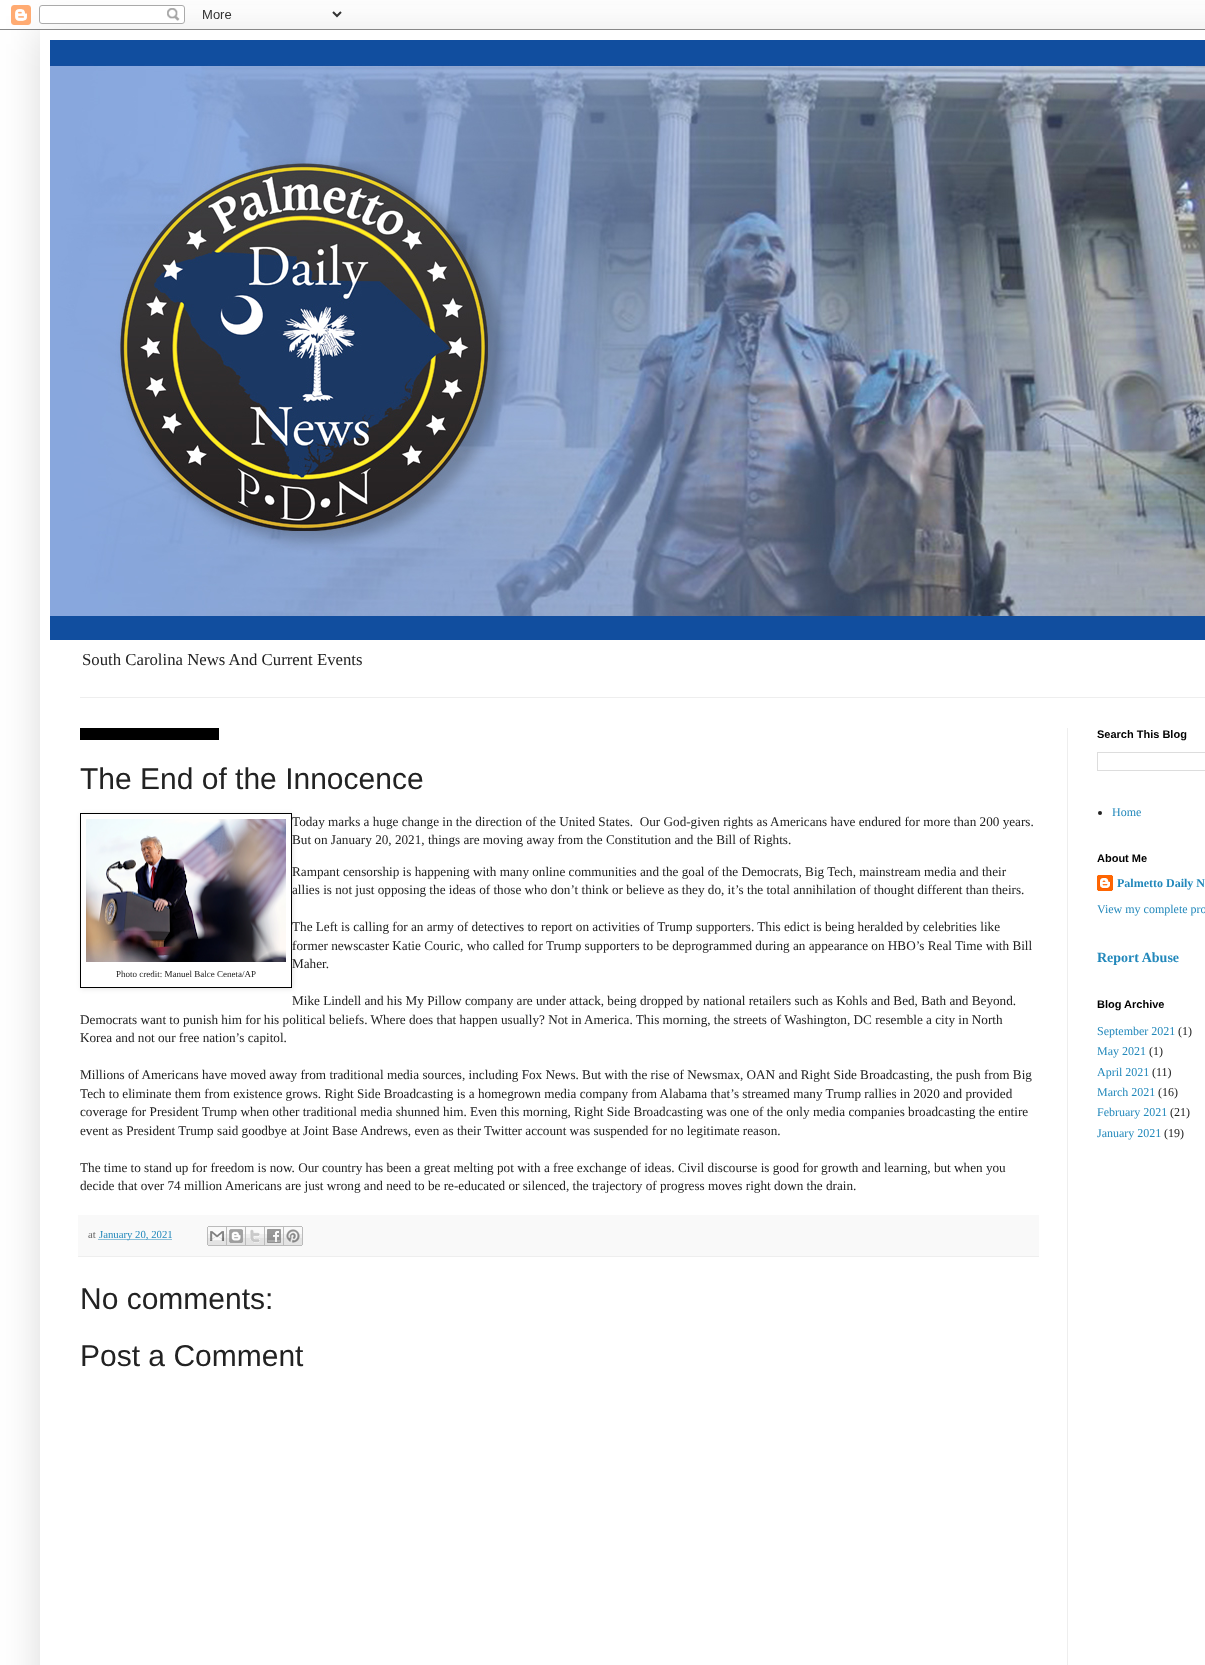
<svg xmlns="http://www.w3.org/2000/svg" width="1205" height="1665">
<defs>
<clipPath id="clip1"><path d="M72 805h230v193h-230zm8 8h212v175h-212z" clip-rule="evenodd"/></clipPath>
</defs>
<rect width="100%" height="100%" fill="#fff"/>
<image x="0" y="0" width="1205" height="1665" href="media/1.png"/>
<rect x="40" y="30" width="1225" height="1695" fill="#00000026" filter="blur(20px)"/>
<image x="0" y="5" width="1205" height="25" href="media/2.png"/>
<rect x="40" y="30" width="1165" height="1635" fill="#fff"/>
<image x="50" y="40" width="1155" height="600" href="media/3.png"/>
<text x="82" y="665" style="font-family:Liberation Serif;font-size:16.75px;fill:#222">South Carolina News And Current Events</text>
<rect x="80" y="697" width="1125" height="1" fill="#eee"/>
<rect x="1067" y="728" width="1" height="937" fill="#eee"/>
<rect x="80" y="728" width="139" height="12" fill="#000"/>
<text x="80" y="789" style="font-family:Liberation Sans;font-size:30px;fill:#222">The End of the Innocence</text>
<text x="292" y="826" style="font-family:Liberation Serif;font-size:13.2px;fill:#222" xml:space="preserve">Today marks a huge change in the direction of the United States.  Our God-given rights as Americans have endured for more than 200 years.</text>
<text x="292" y="844" style="font-family:Liberation Serif;font-size:13.2px;fill:#222">But on January 20, 2021, things are moving away from the Constitution and the Bill of Rights.</text>
<text x="292" y="876" style="font-family:Liberation Serif;font-size:13.2px;fill:#222">Rampant censorship is happening with many online communities and the goal of the Democrats, Big Tech, mainstream media and their</text>
<text x="292" y="894" style="font-family:Liberation Serif;font-size:13.2px;fill:#222">allies is not just opposing the ideas of those who don’t think or believe as they do, it’s the total annihilation of thought different than theirs.</text>
<text x="292" y="931" style="font-family:Liberation Serif;font-size:13.2px;fill:#222">The Left is calling for an army of detectives to report on activities of Trump supporters. This edict is being heralded by celebrities like</text>
<text x="292" y="950" style="font-family:Liberation Serif;font-size:13.2px;fill:#222">former newscaster Katie Couric, who called for Trump supporters to be deprogrammed during an appearance on HBO’s Real Time with Bill</text>
<text x="292" y="968" style="font-family:Liberation Serif;font-size:13.2px;fill:#222">Maher.</text>
<g clip-path="url(#clip1)">
<rect x="81" y="814" width="212" height="175" fill="#0000001a" filter="blur(2.5px)"/>
</g>
<rect x="80.5" y="813.5" width="211" height="174" fill="none" stroke="#000"/>
<image x="86" y="819" width="200" height="143" href="media/4.png"/>
<text x="116" y="977" style="font-family:Liberation Serif;font-size:9px;fill:#222">Photo credit: Manuel Balce Ceneta/AP</text>
<text x="292" y="1005" style="font-family:Liberation Serif;font-size:13.2px;fill:#222">Mike Lindell and his My Pillow company are under attack, being dropped by national retailers such as Kohls and Bed, Bath and Beyond.</text>
<text x="80" y="1024" style="font-family:Liberation Serif;font-size:13.2px;fill:#222">Democrats want to punish him for his political beliefs. Where does that happen usually? Not in America. This morning, the streets of Washington, DC resemble a city in North</text>
<text x="80" y="1042" style="font-family:Liberation Serif;font-size:13.2px;fill:#222">Korea and not our free nation’s capitol.</text>
<text x="80" y="1079" style="font-family:Liberation Serif;font-size:13.2px;fill:#222">Millions of Americans have moved away from traditional media sources, including Fox News. But with the rise of Newsmax, OAN and Right Side Broadcasting, the push from Big</text>
<text x="80" y="1098" style="font-family:Liberation Serif;font-size:13.2px;fill:#222">Tech to eliminate them from existence grows. Right Side Broadcasting is a homegrown media company from Alabama that’s streamed many Trump rallies in 2020 and provided</text>
<text x="80" y="1116" style="font-family:Liberation Serif;font-size:13.2px;fill:#222">coverage for President Trump when other traditional media shunned him. Even this morning, Right Side Broadcasting was one of the only media companies broadcasting the entire</text>
<text x="80" y="1135" style="font-family:Liberation Serif;font-size:13.2px;fill:#222">event as President Trump said goodbye at Joint Base Andrews, even as their Twitter account was suspended for no legitimate reason.</text>
<text x="80" y="1172" style="font-family:Liberation Serif;font-size:13.2px;fill:#222">The time to stand up for freedom is now. Our country has been a great melting pot with a free exchange of ideas. Civil discourse is good for growth and learning, but when you</text>
<text x="80" y="1190" style="font-family:Liberation Serif;font-size:13.2px;fill:#222">decide that over 74 million Americans are just wrong and need to be re-educated or silenced, the trajectory of progress moves right down the drain.</text>
<rect x="78" y="1215" width="961" height="41" fill="#f9f9f9"/>
<rect x="78" y="1256" width="961" height="1" fill="#eee"/>
<text x="88" y="1238" style="font-family:Liberation Serif;font-size:10.75px;fill:#666">at</text>
<path d="M98.5 1239.5h74" fill="none" stroke="#28b" stroke-dasharray="1 1"/>
<text x="99" y="1238" style="font-family:Liberation Serif;font-size:10.75px;fill:#28b">January 20, 2021</text>
<image x="207" y="1226" width="20" height="20" href="media/5.png"/>
<image x="227" y="1226" width="19" height="20" href="media/6.png"/>
<image x="246" y="1226" width="19" height="20" href="media/7.png"/>
<image x="265" y="1226" width="19" height="20" href="media/8.png"/>
<image x="284" y="1226" width="19" height="20" href="media/9.png"/>
<text x="80" y="1309" style="font-family:Liberation Sans;font-size:30px;fill:#222">No comments:</text>
<text x="80" y="1366" style="font-family:Liberation Sans;font-size:30px;fill:#222">Post a Comment</text>
<text x="1097" y="738" style="font-family:Liberation Sans;font-size:11px;font-weight:bold;fill:#000">Search This Blog</text>
<rect x="1097.5" y="752.5" width="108" height="18" fill="none" stroke="#ddd"/>
<circle cx="1100" cy="813" r="2" fill="#222"/>
<text x="1112" y="816" style="font-family:Liberation Serif;font-size:12px;fill:#28b">Home</text>
<text x="1097" y="862" style="font-family:Liberation Sans;font-size:11px;font-weight:bold;fill:#000">About Me</text>
<image x="1097" y="875" width="16" height="16" href="media/10.png"/>
<text x="1117" y="887" style="font-family:Liberation Serif;font-size:12px;font-weight:bold;fill:#28b">Palmetto Daily N</text>
<text x="1097" y="913" style="font-family:Liberation Serif;font-size:12px;fill:#28b">View my complete pro</text>
<text x="1097" y="962" style="font-family:Liberation Serif;font-size:14px;font-weight:bold;fill:#28b">Report Abuse</text>
<text x="1097" y="1008" style="font-family:Liberation Sans;font-size:11px;font-weight:bold;fill:#000">Blog Archive</text>
<text x="1097" y="1035" style="font-family:Liberation Serif;font-size:12px;fill:#28b">September 2021</text>
<text x="1178" y="1035" style="font-family:Liberation Serif;font-size:12px;fill:#222">(1)</text>
<text x="1097" y="1055" style="font-family:Liberation Serif;font-size:12px;fill:#28b">May 2021</text>
<text x="1149" y="1055" style="font-family:Liberation Serif;font-size:12px;fill:#222">(1)</text>
<text x="1097" y="1076" style="font-family:Liberation Serif;font-size:12px;fill:#28b">April 2021</text>
<text x="1152" y="1076" style="font-family:Liberation Serif;font-size:12px;fill:#222">(11)</text>
<text x="1097" y="1096" style="font-family:Liberation Serif;font-size:12px;fill:#28b">March 2021</text>
<text x="1158" y="1096" style="font-family:Liberation Serif;font-size:12px;fill:#222">(16)</text>
<text x="1097" y="1116" style="font-family:Liberation Serif;font-size:12px;fill:#28b">February 2021</text>
<text x="1170" y="1116" style="font-family:Liberation Serif;font-size:12px;fill:#222">(21)</text>
<text x="1097" y="1137" style="font-family:Liberation Serif;font-size:12px;fill:#28b">January 2021</text>
<text x="1164" y="1137" style="font-family:Liberation Serif;font-size:12px;fill:#222">(19)</text>
</svg>
